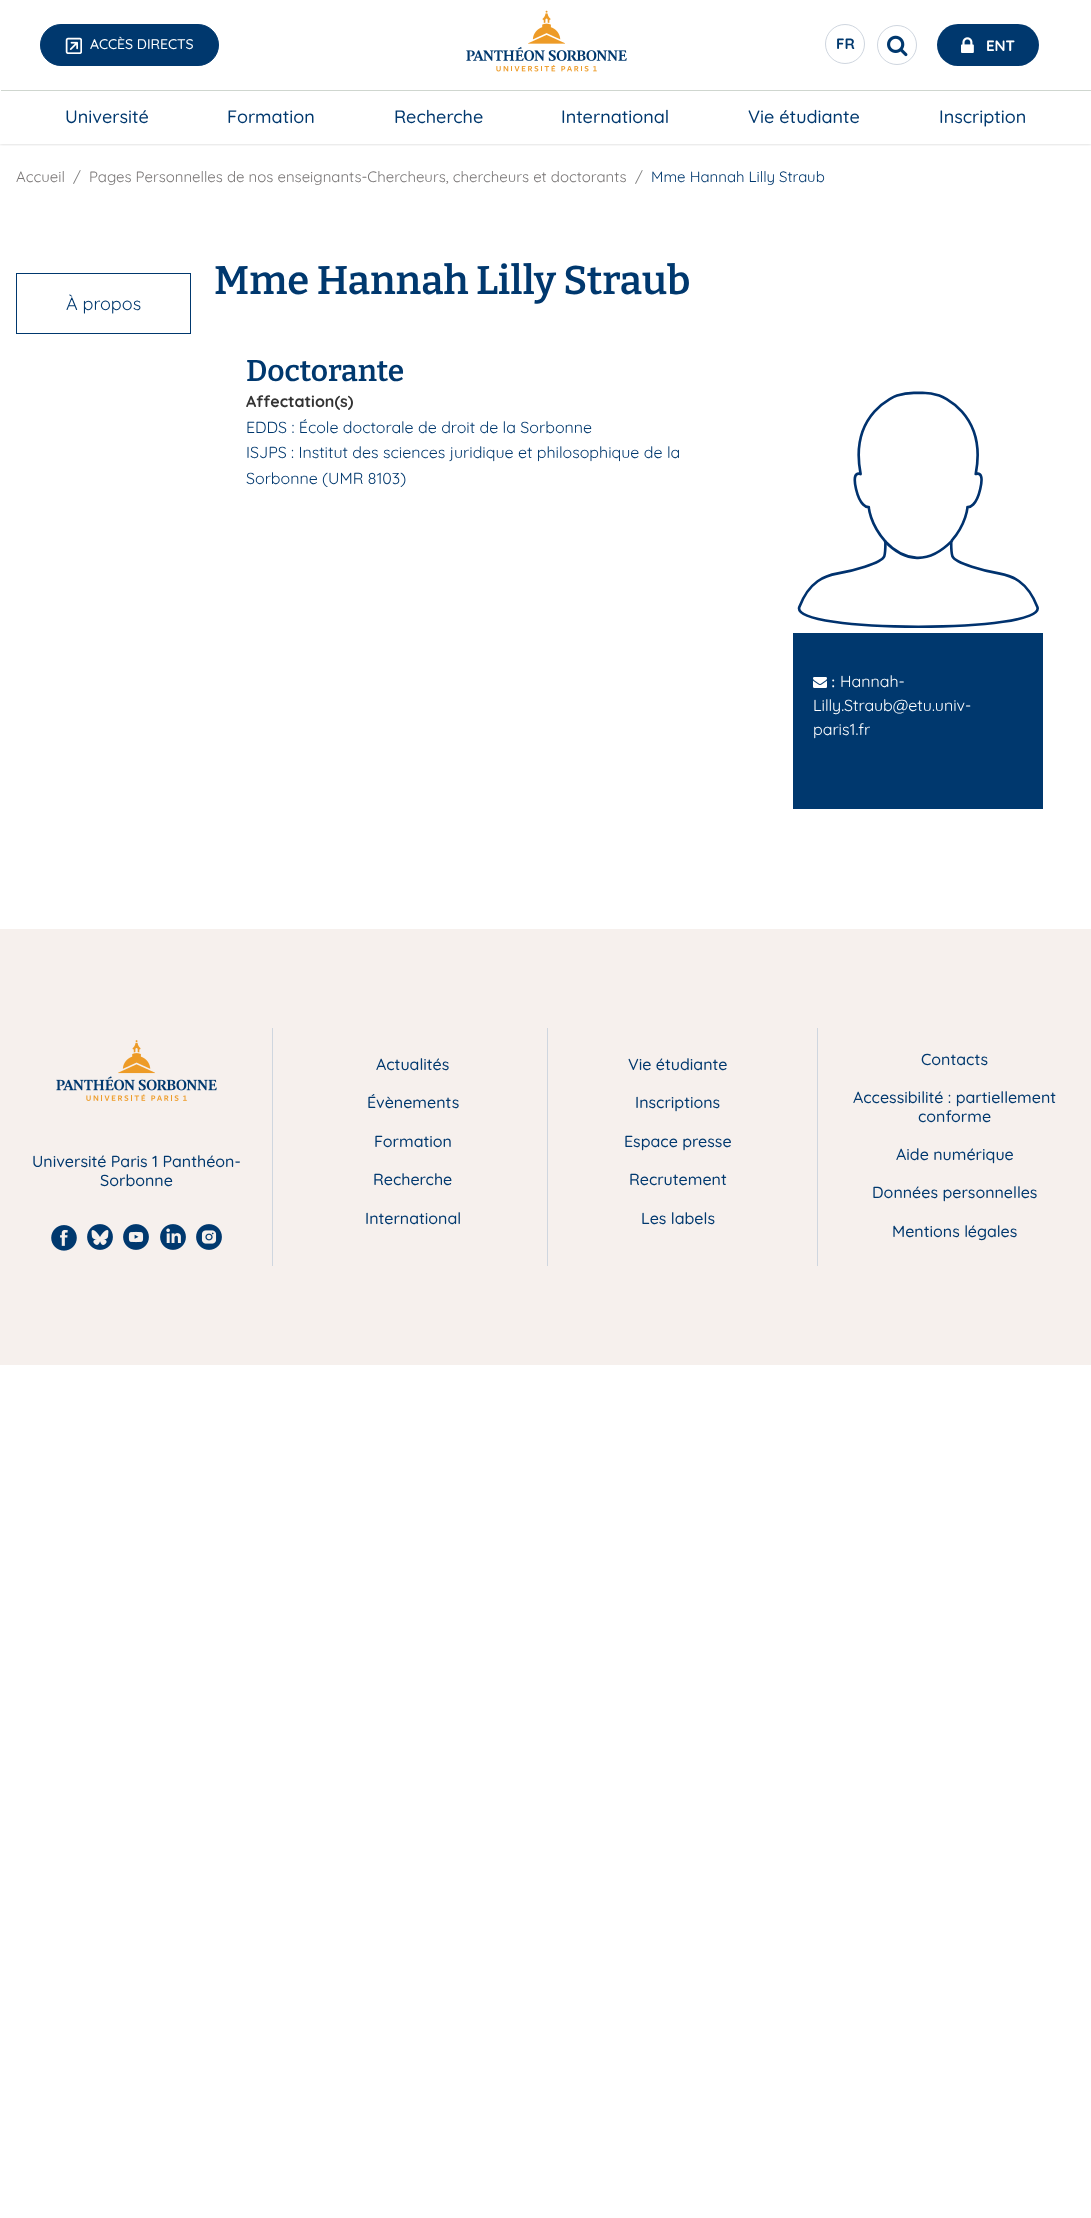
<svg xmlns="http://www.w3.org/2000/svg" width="1091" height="2218">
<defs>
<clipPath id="clip1"><rect x="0" y="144" width="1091" height="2"/></clipPath>
</defs>
<rect width="100%" height="100%" fill="#fff"/>
<g clip-path="url(#clip1)">
<rect width="1091" height="144" fill="#33333340" filter="blur(1.5px)"/>
</g>
<rect x="40.5" y="24.5" width="178" height="41" rx="20.5" fill="#00386e" stroke="#00386e"/>
<image x="65" y="37" width="17" height="17" href="media/1.png"/>
<text x="90" y="49" style="font-family:Quicksand;font-size:14px;font-weight:500;fill:#fff">ACCÈS DIRECTS</text>
<image x="466" y="10" width="161" height="62" href="media/2.png"/>
<circle cx="845" cy="44" r="19.5" fill="none" stroke="#cfd6df"/>
<text x="836" y="49" style="font-family:Quicksand;font-size:15px;font-weight:bold;fill:#00386e">FR</text>
<circle cx="897" cy="45" r="19.5" fill="none" stroke="#cfd6df"/>
<image x="887" y="35" width="21" height="22" href="media/3.png"/>
<rect x="937" y="24" width="102" height="42" rx="21" fill="#00386e"/>
<image x="961" y="37" width="13" height="16" href="media/4.png"/>
<text x="986" y="51" style="font-family:Quicksand;font-size:15px;font-weight:bold;fill:#fff">ENT</text>
<rect x="1" y="90" width="1090" height="1" fill="#cfd6cf"/>
<text x="65" y="123" style="font-family:Quicksand;font-size:18px;font-weight:500;fill:#00386e">Université</text>
<text x="227" y="123" style="font-family:Quicksand;font-size:18px;font-weight:500;fill:#00386e">Formation</text>
<text x="394" y="123" style="font-family:Quicksand;font-size:18px;font-weight:500;fill:#00386e">Recherche</text>
<text x="561" y="123" style="font-family:Quicksand;font-size:18px;font-weight:500;fill:#00386e">International</text>
<text x="748" y="123" style="font-family:Quicksand;font-size:18px;font-weight:500;fill:#00386e">Vie étudiante</text>
<text x="939" y="123" style="font-family:Quicksand;font-size:18px;font-weight:500;fill:#00386e">Inscription</text>
<text x="16" y="182" style="font-family:Quicksand;font-size:15px;fill:#797676">Accueil</text>
<text x="73" y="182" style="font-family:Quicksand;font-size:15px;fill:#828282">/</text>
<text x="89" y="182" style="font-family:Quicksand;font-size:15px;fill:#797676">Pages Personnelles de nos enseignants-Chercheurs, chercheurs et doctorants</text>
<text x="635" y="182" style="font-family:Quicksand;font-size:15px;fill:#828282">/</text>
<text x="651" y="182" style="font-family:Quicksand;font-size:15px;fill:#00386e">Mme Hannah Lilly Straub</text>
<rect x="16.5" y="273.5" width="174" height="60" fill="none" stroke="#00386e"/>
<text x="66" y="310" style="font-family:Quicksand;font-size:18px;fill:#00386e">À propos</text>
<text x="214" y="294" style="font-family:Bitter;font-size:40px;font-weight:100;fill:#00386e">Mme Hannah Lilly Straub</text>
<text x="246" y="381" style="font-family:Bitter;font-size:30px;font-weight:100;fill:#00386e">Doctorante</text>
<text x="246" y="407" style="font-family:Quicksand;font-size:16px;font-weight:bold;fill:#333">Affectation(s)</text>
<text x="246" y="433" style="font-family:Quicksand;font-size:16px;fill:#00386e">EDDS : École doctorale de droit de la Sorbonne</text>
<text x="246" y="458" style="font-family:Quicksand;font-size:16px;fill:#00386e">ISJPS : Institut des sciences juridique et philosophique de la</text>
<text x="246" y="484" style="font-family:Quicksand;font-size:16px;fill:#00386e">Sorbonne (UMR 8103)</text>
<image x="797" y="391" width="242" height="237" href="media/5.png"/>
<rect x="793" y="633" width="250" height="176" fill="#00386e"/>
<image x="813" y="677" width="14" height="11" href="media/6.png"/>
<text x="831" y="687" style="font-family:Liberation Serif;font-size:16px;fill:#fff">:</text>
<text x="840" y="687" style="font-family:Quicksand;font-size:16px;fill:#fff">Hannah-</text>
<text x="813" y="711" style="font-family:Quicksand;font-size:16px;fill:#fff">Lilly.Straub@etu.univ-</text>
<text x="813" y="735" style="font-family:Quicksand;font-size:16px;fill:#fff">paris1.fr</text>
<rect y="929" width="1091" height="436" fill="#f6f0ed"/>
<image x="56" y="1040" width="161" height="61" href="media/7.png"/>
<rect x="272" y="1028" width="1" height="238" fill="#cfd6df"/>
<text x="32" y="1167" style="font-family:Quicksand;font-size:16px;font-weight:500;fill:#00386e">Université Paris 1 Panthéon-</text>
<text x="100" y="1186" style="font-family:Quicksand;font-size:16px;font-weight:500;fill:#00386e">Sorbonne</text>
<image x="51" y="1225" width="26" height="26" href="media/8.png"/>
<image x="87" y="1224" width="26" height="26" href="media/9.png"/>
<image x="123" y="1224" width="26" height="26" href="media/10.png"/>
<image x="160" y="1224" width="26" height="26" href="media/11.png"/>
<image x="196" y="1224" width="26" height="26" href="media/12.png"/>
<rect x="547" y="1028" width="1" height="238" fill="#cfd6df"/>
<text x="376" y="1070" style="font-family:Quicksand;font-size:16px;font-weight:500;fill:#00386e">Actualités</text>
<text x="628" y="1070" style="font-family:Quicksand;font-size:16px;font-weight:500;fill:#00386e">Vie étudiante</text>
<text x="367" y="1108" style="font-family:Quicksand;font-size:16px;font-weight:500;fill:#00386e">Évènements</text>
<text x="635" y="1108" style="font-family:Quicksand;font-size:16px;font-weight:500;fill:#00386e">Inscriptions</text>
<text x="374" y="1147" style="font-family:Quicksand;font-size:16px;font-weight:500;fill:#00386e">Formation</text>
<text x="624" y="1147" style="font-family:Quicksand;font-size:16px;font-weight:500;fill:#00386e">Espace presse</text>
<text x="373" y="1185" style="font-family:Quicksand;font-size:16px;font-weight:500;fill:#00386e">Recherche</text>
<text x="629" y="1185" style="font-family:Quicksand;font-size:16px;font-weight:500;fill:#00386e">Recrutement</text>
<text x="365" y="1224" style="font-family:Quicksand;font-size:16px;font-weight:500;fill:#00386e">International</text>
<text x="641" y="1224" style="font-family:Quicksand;font-size:16px;font-weight:500;fill:#00386e">Les labels</text>
<rect x="817" y="1028" width="1" height="238" fill="#cfd6df"/>
<text x="921" y="1065" style="font-family:Quicksand;font-size:16px;font-weight:500;fill:#00386e">Contacts</text>
<text x="853" y="1103" style="font-family:Quicksand;font-size:16px;font-weight:500;fill:#00386e">Accessibilité : partiellement</text>
<text x="918" y="1122" style="font-family:Quicksand;font-size:16px;font-weight:500;fill:#00386e">conforme</text>
<text x="896" y="1160" style="font-family:Quicksand;font-size:16px;font-weight:500;fill:#00386e">Aide numérique</text>
<text x="872" y="1198" style="font-family:Quicksand;font-size:16px;font-weight:500;fill:#00386e">Données personnelles</text>
<text x="892" y="1237" style="font-family:Quicksand;font-size:16px;font-weight:500;fill:#00386e">Mentions légales</text>
</svg>
